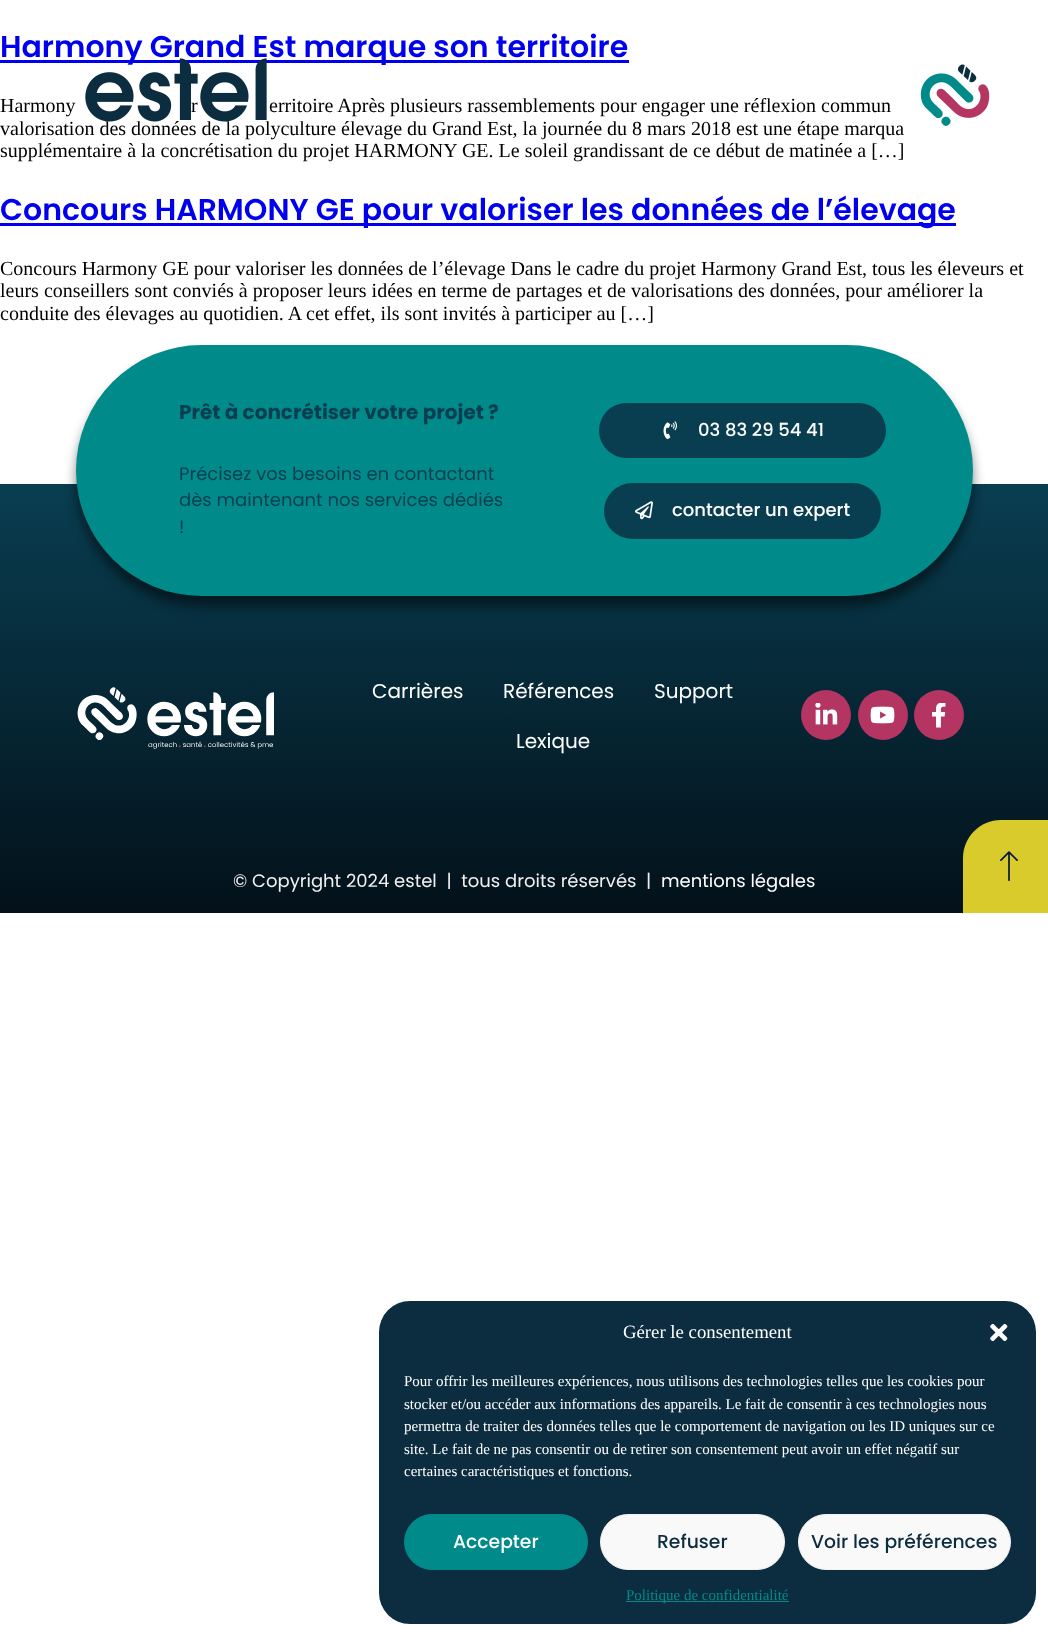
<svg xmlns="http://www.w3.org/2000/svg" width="1048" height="1636">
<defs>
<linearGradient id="g1" gradientUnits="userSpaceOnUse" x1="524" y1="484" x2="524" y2="913"><stop offset="0" stop-color="#093e51"/><stop offset="1" stop-color="#03111a"/></linearGradient>
</defs>
<rect width="100%" height="100%" fill="#fff"/>
<rect y="60" width="629" height="3" fill="#00e"/>
<text x="0" y="57" style="font-family:Poppins;font-size:30px;font-weight:600;fill:#00e">Harmony Grand Est marque son territoire</text>
<text x="191" y="112" style="font-family:Liberation Serif;font-size:20px;fill:#000">r</text>
<text x="0" y="135" style="font-family:Liberation Serif;font-size:20px;fill:#000">valorisation des données de la polyculture élevage du Grand Est, la journée du 8 mars 2018 est une étape marqua</text>
<image x="85" y="58" width="182" height="64" href="media/1.png"/>
<text x="0" y="157" style="font-family:Liberation Serif;font-size:20px;fill:#000">supplémentaire à la concrétisation du projet HARMONY GE. Le soleil grandissant de ce début de matinée a […]</text>
<circle cx="955.5" cy="93.5" r="62.5" fill="#fff"/>
<circle cx="955.5" cy="93.5" r="62.5" fill="#ffffff99"/>
<image x="920" y="64" width="70" height="62" href="media/2.png"/>
<text x="0" y="112" style="font-family:Liberation Serif;font-size:20px;fill:#000">Harmony</text>
<text x="269" y="112" style="font-family:Liberation Serif;font-size:20px;fill:#000">erritoire Après plusieurs rassemblements pour engager une réflexion commun</text>
<rect y="223" width="956" height="3" fill="#00e"/>
<text x="0" y="220" style="font-family:Poppins;font-size:30px;font-weight:600;fill:#00e">Concours HARMONY GE pour valoriser les données de l’élevage</text>
<text x="0" y="275" style="font-family:Liberation Serif;font-size:20px;fill:#000">Concours Harmony GE pour valoriser les données de l’élevage Dans le cadre du projet Harmony Grand Est, tous les éleveurs et</text>
<text x="0" y="297" style="font-family:Liberation Serif;font-size:20px;fill:#000">leurs conseillers sont conviés à proposer leurs idées en terme de partages et de valorisations des données, pour améliorer la</text>
<text x="0" y="320" style="font-family:Liberation Serif;font-size:20px;fill:#000">conduite des élevages au quotidien. A cet effet, ils sont invités à participer au […]</text>
<rect y="484" width="1048" height="429" fill="url(#g1)"/>
<rect x="76" y="355" width="897" height="251" rx="125.5" fill="#00000080" filter="blur(6px)"/>
<rect x="76" y="345" width="897" height="251" rx="125.5" fill="#008b8a"/>
<text x="179" y="419" style="font-family:Poppins;font-size:20px;font-weight:bold;fill:#093e51">Prêt à concrétiser votre projet ?</text>
<text x="179" y="480" style="font-family:Poppins;font-size:18px;fill:#093e51">Précisez vos besoins en contactant</text>
<text x="179" y="506" style="font-family:Poppins;font-size:18px;fill:#093e51">dès maintenant nos services dédiés</text>
<text x="179" y="533" style="font-family:Poppins;font-size:18px;fill:#093e51">!</text>
<rect x="599" y="403" width="287" height="55" rx="27.5" fill="#093e51"/>
<image x="663" y="421" width="14" height="18" href="media/3.png"/>
<text x="698" y="436" style="font-family:Poppins;font-size:18px;font-weight:500;fill:#fff">03 83 29 54 41</text>
<rect x="604" y="483" width="277" height="56" rx="28" fill="#093e51"/>
<image x="635" y="501" width="18" height="19" href="media/4.png"/>
<text x="672" y="516" style="font-family:Poppins;font-size:18px;font-weight:500;fill:#fff">contacter un expert</text>
<image x="77" y="687" width="197" height="62" href="media/5.png"/>
<text x="372" y="698" style="font-family:Poppins;font-size:20px;fill:#fff">Carrières</text>
<text x="503" y="698" style="font-family:Poppins;font-size:20px;fill:#fff">Références</text>
<text x="654" y="698" style="font-family:Poppins;font-size:20px;fill:#fff">Support</text>
<text x="516" y="748" style="font-family:Poppins;font-size:20px;fill:#fff">Lexique</text>
<circle cx="826" cy="715" r="25" fill="#b43561"/>
<image x="815" y="703" width="23" height="22" href="media/6.png"/>
<circle cx="883" cy="715" r="25" fill="#b43561"/>
<image x="870" y="706" width="25" height="18" href="media/7.png"/>
<circle cx="939" cy="715" r="25" fill="#b43561"/>
<image x="932" y="703" width="14" height="25" href="media/8.png"/>
<text x="233" y="887" style="font-family:Poppins;font-size:18px;fill:#f0f0f0" xml:space="preserve">© Copyright 2024 estel  |  tous droits réservés  |</text>
<text x="661" y="887" style="font-family:Poppins;font-size:18px;fill:#fff">mentions légales</text>
<path d="M1001 820h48v93h-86v-55c0-21 17-38 38-38z" fill="#d8cb2b"/>
<image x="1000" y="851" width="18" height="30" href="media/9.png"/>
<rect x="379" y="1301" width="657" height="323" rx="31" fill="#0c2c40"/>
<text x="623" y="1338" style="font-family:Liberation Serif;font-size:18.75px;fill:#fff">Gérer le consentement</text>
<image x="990" y="1323" width="18" height="19" href="media/10.png"/>
<text x="404" y="1386" style="font-family:Liberation Serif;font-size:15px;fill:#fff">Pour offrir les meilleures expériences, nous utilisons des technologies telles que les cookies pour</text>
<text x="404" y="1409" style="font-family:Liberation Serif;font-size:15px;fill:#fff">stocker et/ou accéder aux informations des appareils. Le fait de consentir à ces technologies nous</text>
<text x="404" y="1431" style="font-family:Liberation Serif;font-size:15px;fill:#fff">permettra de traiter des données telles que le comportement de navigation ou les ID uniques sur ce</text>
<text x="404" y="1454" style="font-family:Liberation Serif;font-size:15px;fill:#fff">site. Le fait de ne pas consentir ou de retirer son consentement peut avoir un effet négatif sur</text>
<text x="404" y="1476" style="font-family:Liberation Serif;font-size:15px;fill:#fff">certaines caractéristiques et fonctions.</text>
<rect x="404.5" y="1514.5" width="183" height="55" rx="27.5" fill="#008b8a" stroke="#008b8a"/>
<text x="453" y="1548" style="font-family:Poppins;font-size:18.75px;font-weight:500;fill:#fff">Accepter</text>
<rect x="600.5" y="1514.5" width="184" height="55" rx="27.5" fill="#f9f9f9" stroke="#f2f2f2"/>
<text x="657" y="1548" style="font-family:Poppins;font-size:18.75px;font-weight:500;fill:#0c2c40">Refuser</text>
<rect x="798.5" y="1514.5" width="212" height="55" rx="27.5" fill="#f9f9f9" stroke="#f2f2f2"/>
<text x="811" y="1548" style="font-family:Poppins;font-size:18.75px;font-weight:500;fill:#0c2c40">Voir les préférences</text>
<rect x="626" y="1601" width="163" height="1" fill="#008b8a"/>
<text x="626" y="1600" style="font-family:Liberation Serif;font-size:15px;fill:#008b8a">Politique de confidentialité</text>
</svg>
